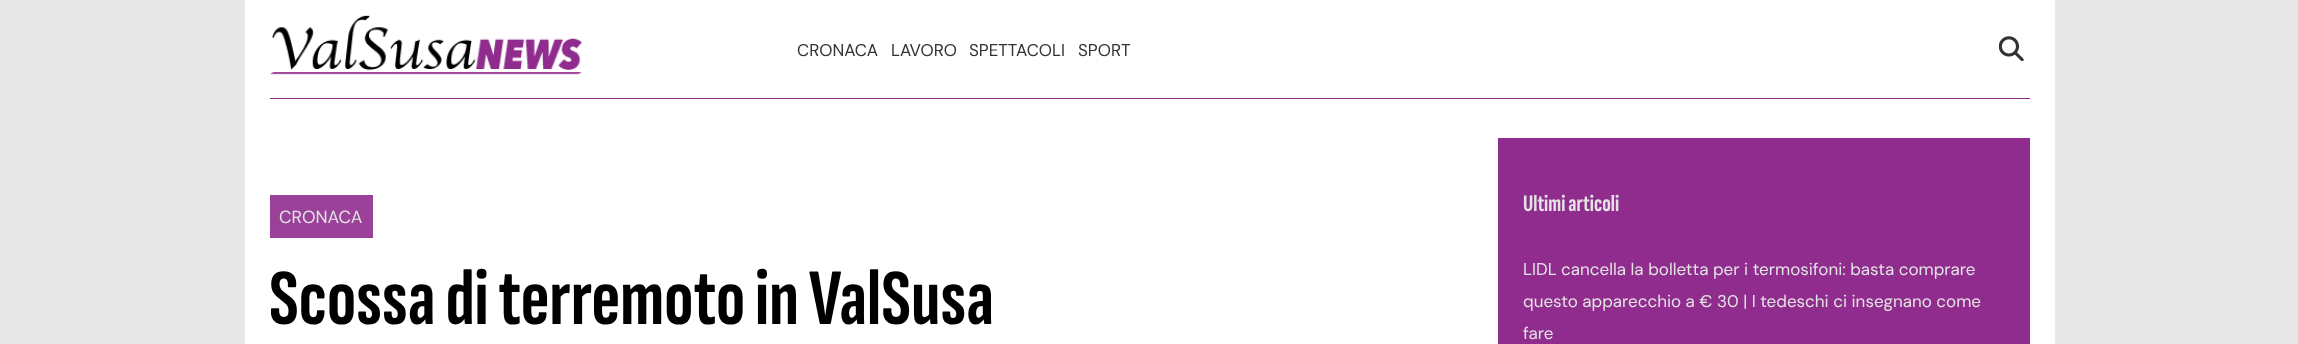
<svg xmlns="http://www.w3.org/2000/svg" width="2298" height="344">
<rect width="100%" height="100%" fill="#e8e8e8"/>
<rect x="245" width="1810" height="344" fill="#fff"/>
<rect x="270" y="98" width="1760" height="1" fill="#902c8e"/>
<image x="270" y="15" width="313" height="60" href="media/1.png"/>
<text x="797" y="56" style="font-family:DM Sans;font-size:17px;fill:#333">CRONACA</text>
<text x="891" y="56" style="font-family:DM Sans;font-size:17px;fill:#333">LAVORO</text>
<text x="969" y="56" style="font-family:DM Sans;font-size:17px;fill:#333">SPETTACOLI</text>
<text x="1078" y="56" style="font-family:DM Sans;font-size:17px;fill:#333">SPORT</text>
<image x="1999" y="36" width="25" height="25" href="media/2.png"/>
<rect x="270" y="195" width="103" height="43" fill="#9b4199"/>
<text x="279" y="223" style="font-family:DM Sans;font-size:17.5px;fill:#e3e3e3">CRONACA</text>
<text x="269" y="324" style="font-family:Sofia Sans Extra Condensed;font-size:80px;font-weight:bold;fill:#000">Scossa di terremoto in ValSusa</text>
<rect x="1498" y="138" width="532" height="206" fill="#902c8e"/>
<text x="1523" y="211" style="font-family:Sofia Sans Extra Condensed;font-size:23.5px;font-weight:bold;fill:#e3e3e3">Ultimi articoli</text>
<text x="1523" y="275" style="font-family:DM Sans;font-size:17px;fill:#e3e3e3">LIDL cancella la bolletta per i termosifoni: basta comprare</text>
<text x="1523" y="307" style="font-family:DM Sans;font-size:17px;fill:#e3e3e3">questo apparecchio a € 30 | I tedeschi ci insegnano come</text>
<text x="1523" y="339" style="font-family:DM Sans;font-size:17px;fill:#e3e3e3">fare</text>
</svg>
